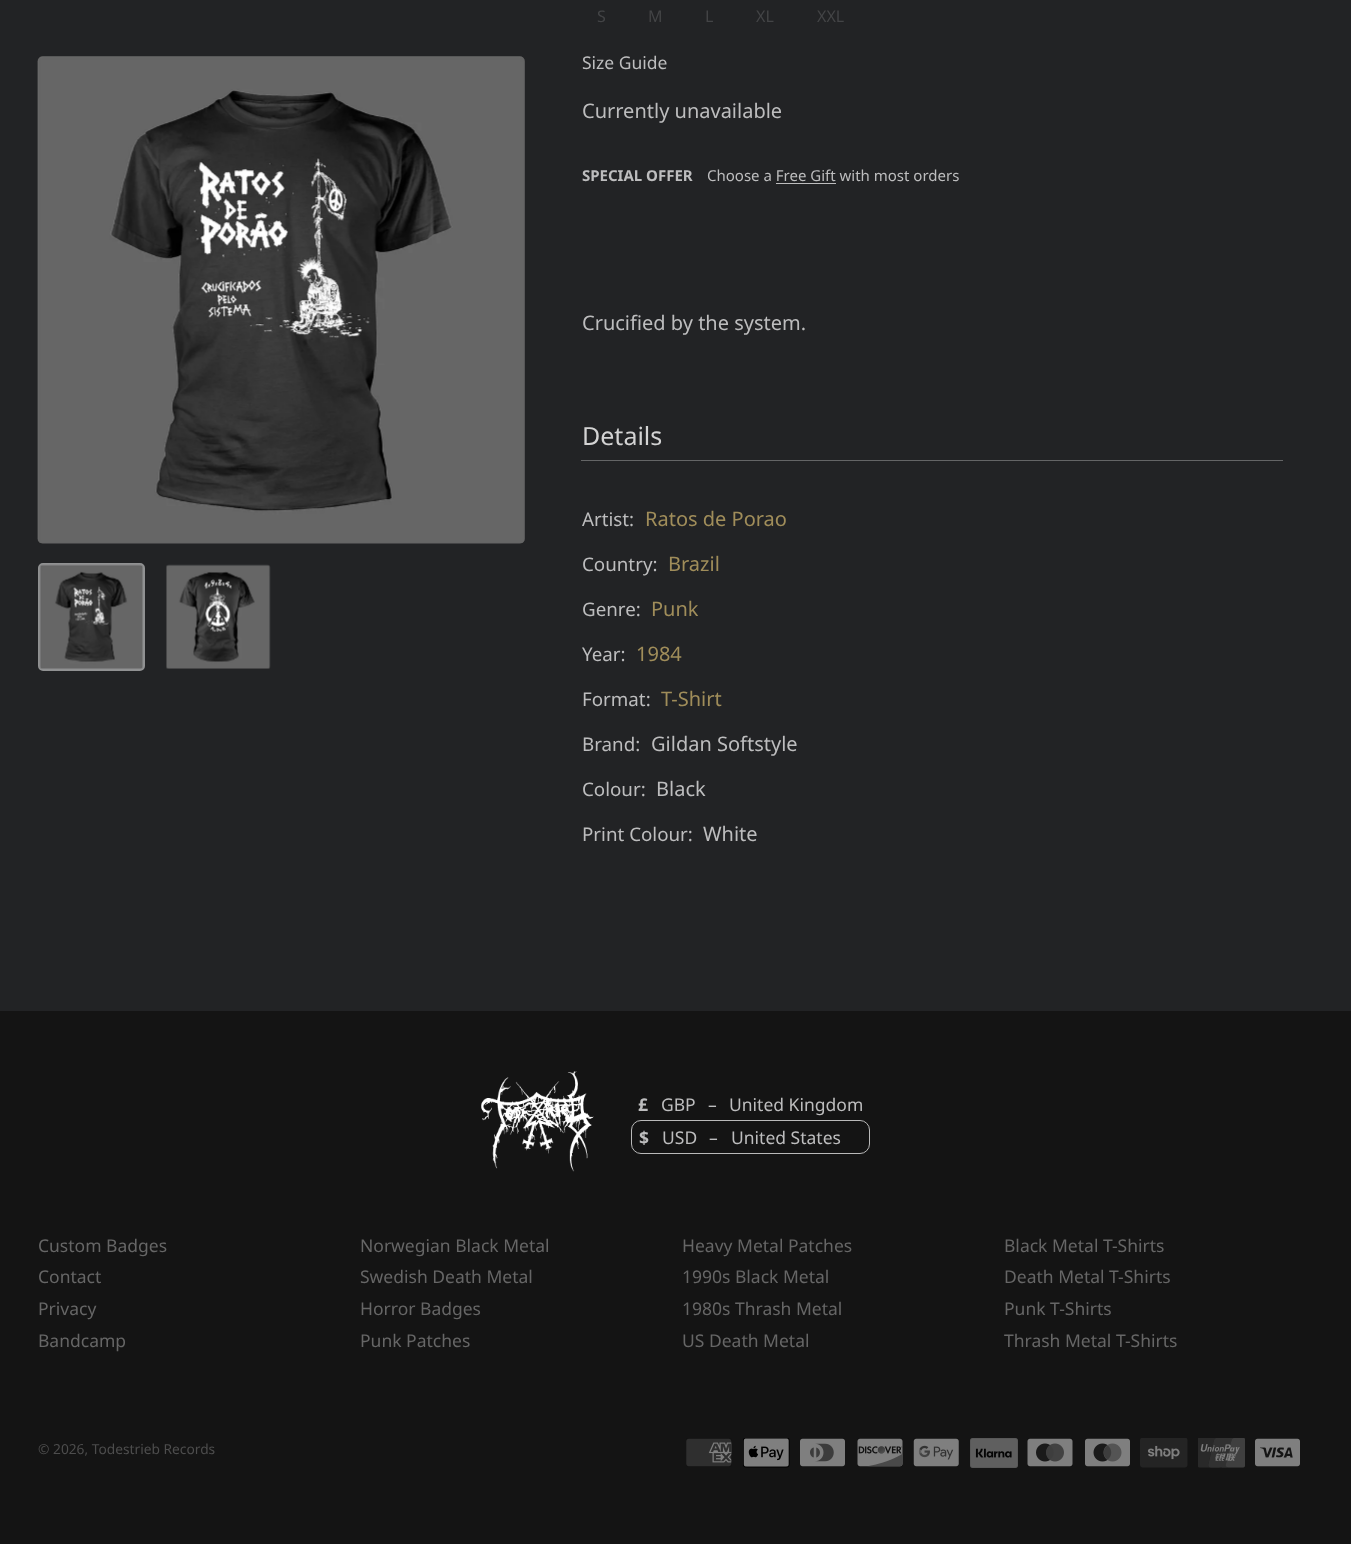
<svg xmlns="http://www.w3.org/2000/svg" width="1351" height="1544">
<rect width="100%" height="100%" fill="#222325"/>
<image x="37" y="56" width="488" height="488" href="media/1.png"/>
<image x="37" y="56" width="488" height="488" href="media/2.png"/>
<rect x="39.5" y="564.5" width="104" height="105" rx="3.5" fill="none" stroke="#909192" stroke-width="3"/>
<image x="39" y="564" width="104" height="105" href="media/3.png"/>
<image x="166" y="564" width="105" height="105" href="media/4.png"/>
<text x="597" y="22" style="font-family:Noto Sans;font-size:16px;fill:#434446">S</text>
<text x="648" y="22" style="font-family:Noto Sans;font-size:16px;fill:#434446">M</text>
<text x="705" y="22" style="font-family:Noto Sans;font-size:16px;fill:#434446">L</text>
<text x="756" y="22" style="font-family:Noto Sans;font-size:16px;fill:#434446">XL</text>
<text x="817" y="22" style="font-family:Noto Sans;font-size:16px;fill:#434446">XXL</text>
<text x="582" y="69" style="font-family:Noto Sans;font-size:17.5px;fill:#bdbdbe">Size Guide</text>
<text x="582" y="118" style="font-family:Noto Sans;font-size:20px;fill:#bdbdbe">Currently unavailable</text>
<text x="582" y="181" style="font-family:Noto Sans;font-size:15px;font-weight:bold;fill:#bdbdbe">SPECIAL OFFER</text>
<text x="707" y="181" style="font-family:Noto Sans;font-size:15px;fill:#bdbdbe">Choose a Free Gift with most orders</text>
<rect x="776" y="183" width="60" height="1" fill="#bdbdbe"/>
<text x="582" y="330" style="font-family:Noto Sans;font-size:20px;fill:#bdbdbe">Crucified by the system.</text>
<rect x="581" y="460" width="702" height="1" fill="#646566"/>
<text x="582" y="445" style="font-family:Noto Sans;font-size:25px;fill:#d3d3d3">Details</text>
<text x="582" y="526" style="font-family:Noto Sans;font-size:18.75px;fill:#bdbdbe">Artist:</text>
<text x="645" y="526" style="font-family:Noto Sans;font-size:20px;fill:#a08d5a">Ratos de Porao</text>
<text x="582" y="571" style="font-family:Noto Sans;font-size:18.75px;fill:#bdbdbe">Country:</text>
<text x="668" y="571" style="font-family:Noto Sans;font-size:20px;fill:#a08d5a">Brazil</text>
<text x="582" y="616" style="font-family:Noto Sans;font-size:18.75px;fill:#bdbdbe">Genre:</text>
<text x="651" y="616" style="font-family:Noto Sans;font-size:20px;fill:#a08d5a">Punk</text>
<text x="582" y="661" style="font-family:Noto Sans;font-size:18.75px;fill:#bdbdbe">Year:</text>
<text x="636" y="661" style="font-family:Noto Sans;font-size:20px;fill:#a08d5a">1984</text>
<text x="582" y="706" style="font-family:Noto Sans;font-size:18.75px;fill:#bdbdbe">Format:</text>
<text x="661" y="706" style="font-family:Noto Sans;font-size:20px;fill:#a08d5a">T-Shirt</text>
<text x="582" y="751" style="font-family:Noto Sans;font-size:18.75px;fill:#bdbdbe">Brand:</text>
<text x="651" y="751" style="font-family:Noto Sans;font-size:20px;fill:#bdbdbe">Gildan Softstyle</text>
<text x="582" y="796" style="font-family:Noto Sans;font-size:18.75px;fill:#bdbdbe">Colour:</text>
<text x="656" y="796" style="font-family:Noto Sans;font-size:20px;fill:#bdbdbe">Black</text>
<text x="582" y="841" style="font-family:Noto Sans;font-size:18.75px;fill:#bdbdbe">Print Colour:</text>
<text x="703" y="841" style="font-family:Noto Sans;font-size:20px;fill:#bdbdbe">White</text>
<rect y="1011" width="1351" height="533" fill="#141414"/>
<image x="481" y="1071" width="113" height="101" href="media/5.png"/>
<text x="638" y="1111" style="font-family:Noto Sans;font-size:17.5px;font-weight:bold;fill:#bdbdbe">£</text>
<text x="661" y="1111" style="font-family:Noto Sans;font-size:17.5px;fill:#bdbdbe">GBP</text>
<text x="708" y="1111" style="font-family:Noto Sans;font-size:17.5px;fill:#bdbdbe">–</text>
<text x="729" y="1111" style="font-family:Noto Sans;font-size:17.5px;fill:#bdbdbe">United Kingdom</text>
<rect x="631.5" y="1120.5" width="238" height="33" rx="9.5" fill="none" stroke="#b9b9b9"/>
<text x="639" y="1144" style="font-family:Noto Sans;font-size:17.5px;font-weight:bold;fill:#bdbdbe">$</text>
<text x="662" y="1144" style="font-family:Noto Sans;font-size:17.5px;fill:#bdbdbe">USD</text>
<text x="709" y="1144" style="font-family:Noto Sans;font-size:17.5px;fill:#bdbdbe">–</text>
<text x="731" y="1144" style="font-family:Noto Sans;font-size:17.5px;fill:#bdbdbe">United States</text>
<text x="38" y="1252" style="font-family:Noto Sans;font-size:17.5px;fill:#666">Custom Badges</text>
<text x="38" y="1283" style="font-family:Noto Sans;font-size:17.5px;fill:#666">Contact</text>
<text x="38" y="1315" style="font-family:Noto Sans;font-size:17.5px;fill:#666">Privacy</text>
<text x="38" y="1347" style="font-family:Noto Sans;font-size:17.5px;fill:#666">Bandcamp</text>
<text x="360" y="1252" style="font-family:Noto Sans;font-size:17.5px;fill:#666">Norwegian Black Metal</text>
<text x="360" y="1283" style="font-family:Noto Sans;font-size:17.5px;fill:#666">Swedish Death Metal</text>
<text x="360" y="1315" style="font-family:Noto Sans;font-size:17.5px;fill:#666">Horror Badges</text>
<text x="360" y="1347" style="font-family:Noto Sans;font-size:17.5px;fill:#666">Punk Patches</text>
<text x="682" y="1252" style="font-family:Noto Sans;font-size:17.5px;fill:#666">Heavy Metal Patches</text>
<text x="682" y="1283" style="font-family:Noto Sans;font-size:17.5px;fill:#666">1990s Black Metal</text>
<text x="682" y="1315" style="font-family:Noto Sans;font-size:17.5px;fill:#666">1980s Thrash Metal</text>
<text x="682" y="1347" style="font-family:Noto Sans;font-size:17.5px;fill:#666">US Death Metal</text>
<text x="1004" y="1252" style="font-family:Noto Sans;font-size:17.5px;fill:#666">Black Metal T-Shirts</text>
<text x="1004" y="1283" style="font-family:Noto Sans;font-size:17.5px;fill:#666">Death Metal T-Shirts</text>
<text x="1004" y="1315" style="font-family:Noto Sans;font-size:17.5px;fill:#666">Punk T-Shirts</text>
<text x="1004" y="1347" style="font-family:Noto Sans;font-size:17.5px;fill:#666">Thrash Metal T-Shirts</text>
<text x="38" y="1454" style="font-family:Noto Sans;font-size:13.75px;fill:#4d4d4d">© 2026, Todestrieb Records</text>
<image x="686" y="1438" width="46" height="29" href="media/6.png"/>
<image x="743" y="1438" width="47" height="30" href="media/7.png"/>
<image x="800" y="1438" width="45" height="29" href="media/8.png"/>
<image x="857" y="1438" width="46" height="29" href="media/9.png"/>
<image x="913" y="1438" width="46" height="29" href="media/10.png"/>
<image x="970" y="1438" width="48" height="30" href="media/11.png"/>
<image x="1027" y="1438" width="46" height="29" href="media/12.png"/>
<image x="1085" y="1438" width="45" height="29" href="media/13.png"/>
<image x="1140" y="1438" width="48" height="30" href="media/14.png"/>
<image x="1198" y="1438" width="47" height="30" href="media/15.png"/>
<image x="1255" y="1438" width="45" height="29" href="media/16.png"/>
</svg>
